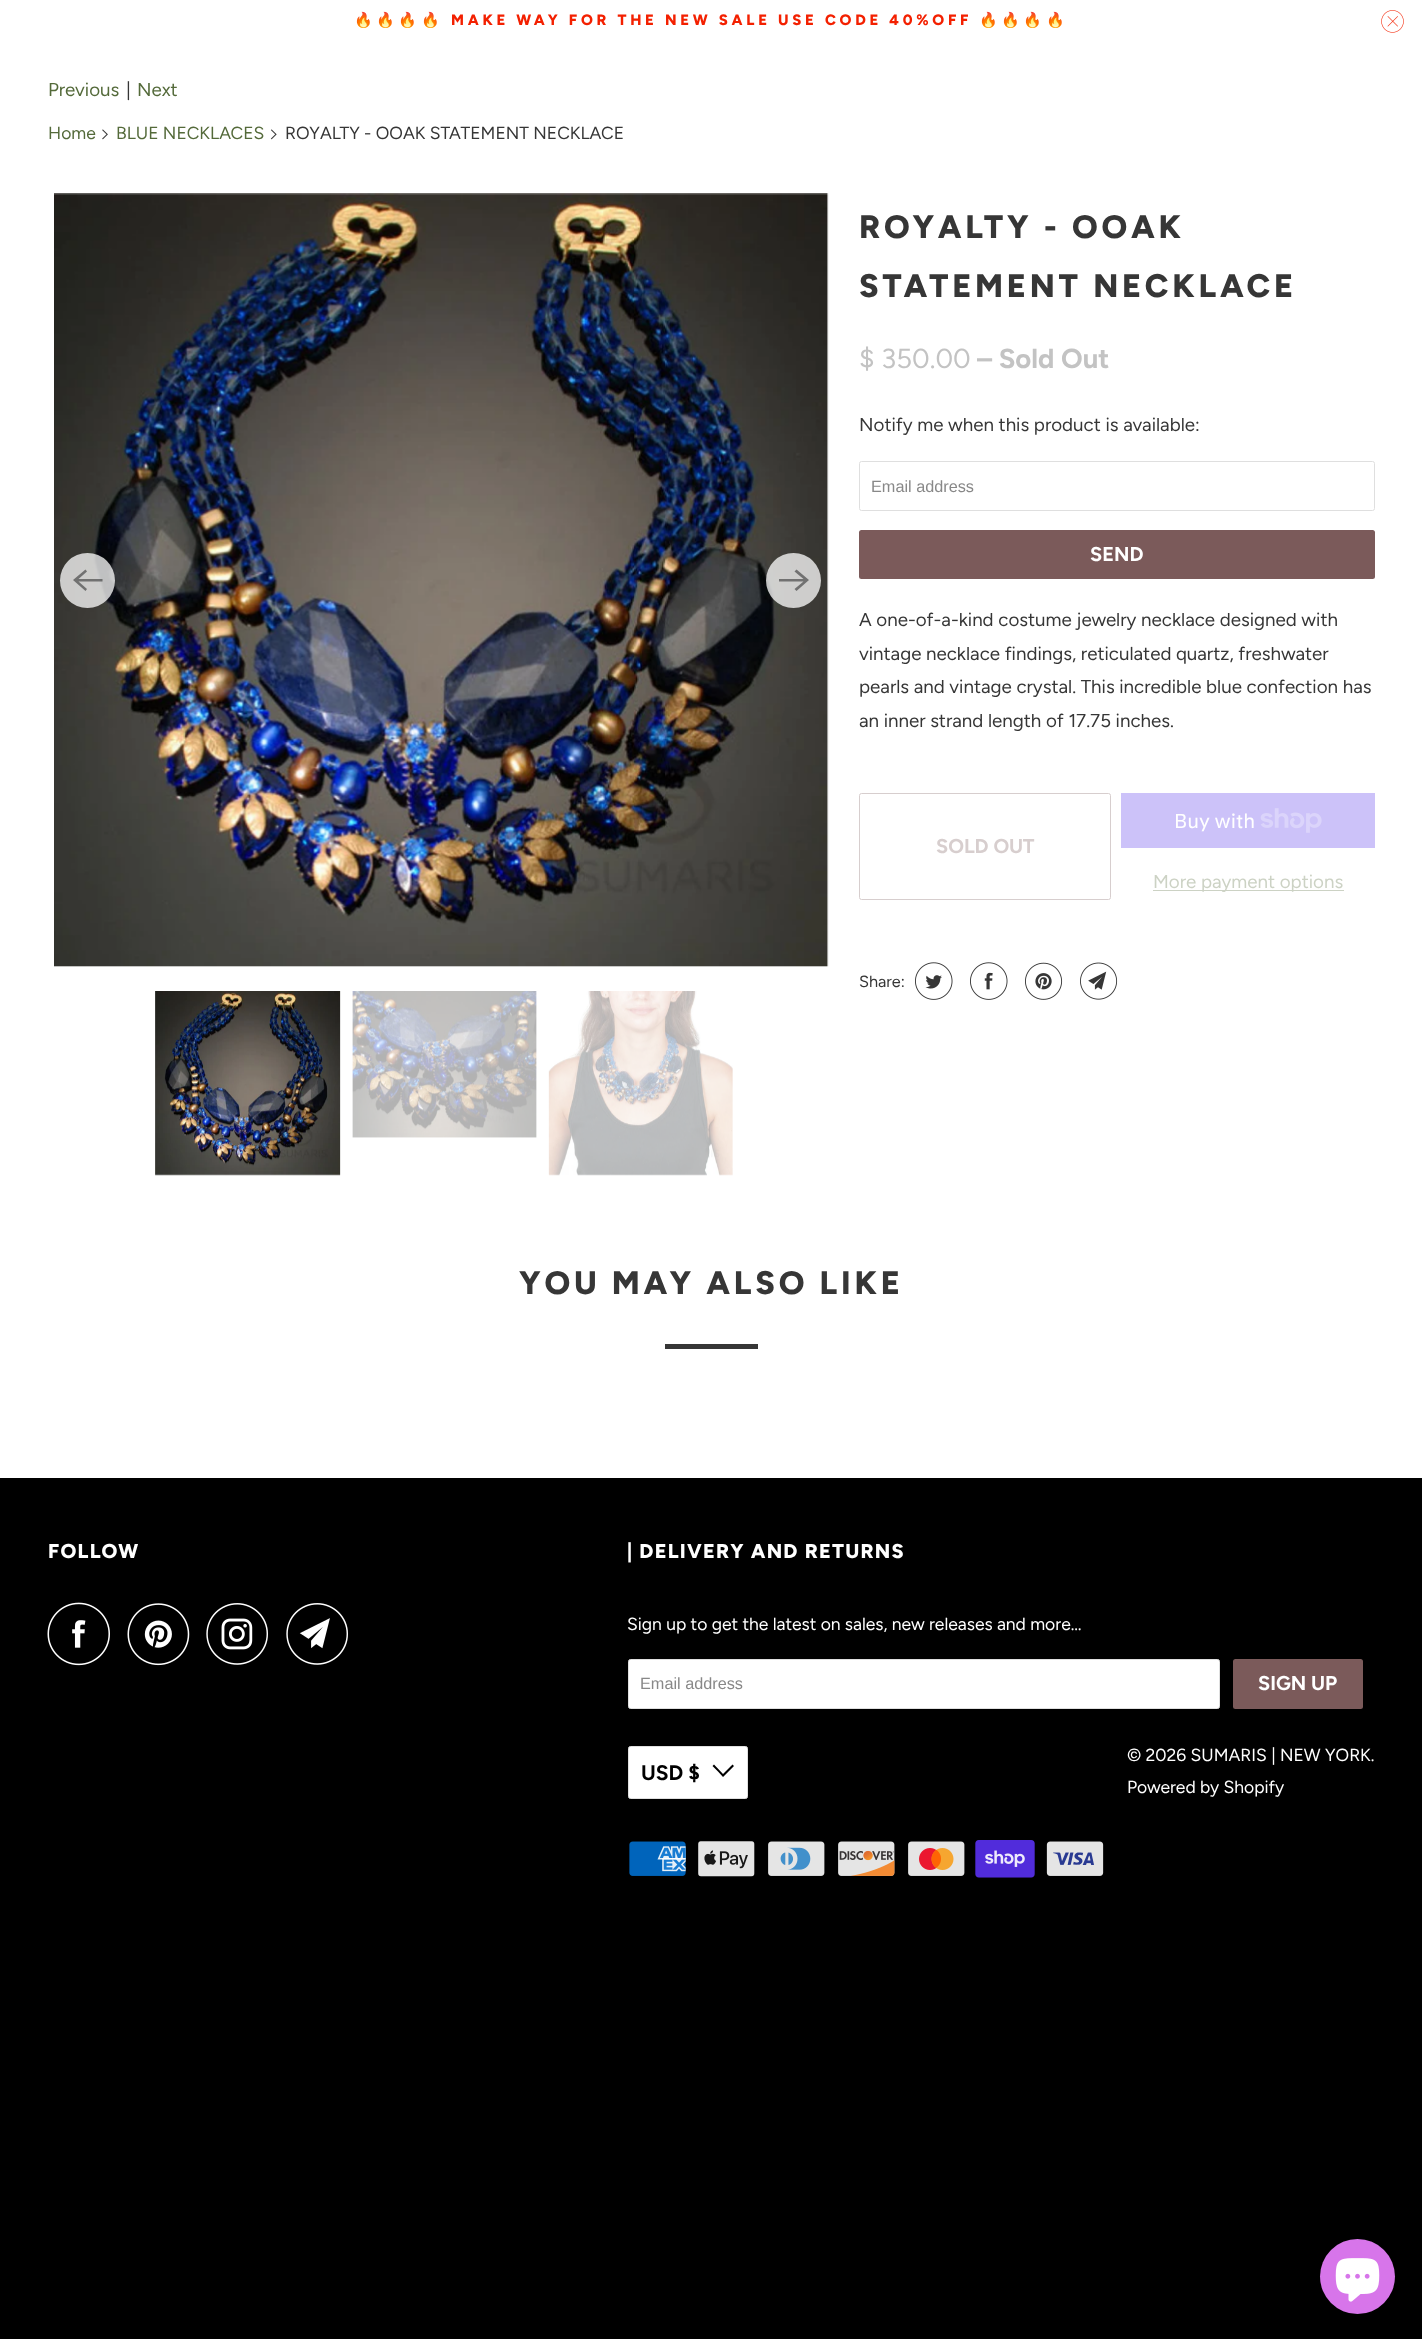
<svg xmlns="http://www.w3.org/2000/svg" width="1422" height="2339">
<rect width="100%" height="100%" fill="#000"/>
<rect width="1422" height="1478" fill="#fff"/>
<text x="354" y="25" style="font-family:Noto Color Emoji;font-size:15px;font-weight:bold;letter-spacing:3.75px;fill:#f32000">🔥🔥🔥🔥</text>
<text x="451" y="25" style="font-family:Figtree;font-size:15px;font-weight:800;letter-spacing:3.75px;fill:#f32000">MAKE WAY FOR THE NEW SALE USE CODE 40%OFF</text>
<text x="979" y="25" style="font-family:Noto Color Emoji;font-size:15px;font-weight:bold;letter-spacing:3.75px;fill:#f32000">🔥🔥🔥🔥</text>
<image x="1381" y="10" width="23" height="23" href="media/1.png"/>
<text x="48" y="96" style="font-family:Figtree;font-size:18.75px;fill:#546a3a">Previous</text>
<text x="126" y="96" style="font-family:Figtree;font-size:18.75px;fill:#363636">|</text>
<text x="137" y="96" style="font-family:Figtree;font-size:18.75px;fill:#546a3a">Next</text>
<text x="48" y="139" style="font-family:Figtree;font-size:17.5px;fill:#546a3a">Home</text>
<image x="102" y="129" width="6" height="11" href="media/2.png"/>
<text x="116" y="139" style="font-family:Figtree;font-size:17.5px;fill:#546a3a">BLUE NECKLACES</text>
<image x="270" y="129" width="7" height="11" href="media/3.png"/>
<text x="285" y="139" style="font-family:Figtree;font-size:17.5px;fill:#363636">ROYALTY - OOAK STATEMENT NECKLACE</text>
<image x="54" y="193" width="775" height="774" href="media/4.png"/>
<circle cx="87.5" cy="580.5" r="27.5" fill="#ffffffbf"/>
<path d="M102.5 579h-24l8.5-7.5l-1.5-2l-12.5 10.5l12.5 11l1.5-2l-8.5-7.5h24z" fill="#33333399"/>
<circle cx="793.5" cy="580.5" r="27.5" fill="#ffffffbf"/>
<path d="M779 581.5h24.5l-9 7.5l2 2l12.5-11l-12.5-10.5l-2 2l9 7.5h-24.5z" fill="#717171"/>
<image x="155" y="991" width="186" height="185" href="media/5.png"/>
<image x="352" y="991" width="185" height="147" href="media/6.png"/>
<image x="548" y="991" width="185" height="185" href="media/7.png"/>
<text x="859" y="238" style="font-family:Figtree;font-size:32.5px;font-weight:800;letter-spacing:3.75px;fill:#363636">ROYALTY - OOAK</text>
<text x="859" y="297" style="font-family:Figtree;font-size:32.5px;font-weight:800;letter-spacing:3.75px;fill:#363636">STATEMENT NECKLACE</text>
<text x="859" y="368" style="font-family:Figtree;font-size:27.5px;fill:#c3c3c3">$ 350.00</text>
<text x="977" y="368" style="font-family:Figtree;font-size:27.5px;font-weight:bold;fill:#c3c3c3">– Sold Out</text>
<text x="859" y="431" style="font-family:Figtree;font-size:18.75px;fill:#363636">Notify me when this product is available:</text>
<rect x="859.5" y="461.5" width="515" height="49" rx="2" fill="none" stroke="#dfdfdf"/>
<text x="871" y="492" style="font-family:Liberation Sans;font-size:16.25px;fill:#888">Email address</text>
<rect x="859" y="530" width="516" height="49" rx="2.5" fill="#7b5a5a"/>
<text x="1090" y="561" style="font-family:Figtree;font-size:20px;font-weight:bold;fill:#fff">SEND</text>
<text x="859" y="626" style="font-family:Figtree;font-size:18.75px;fill:#363636">A one-of-a-kind costume jewelry necklace designed with</text>
<text x="859" y="660" style="font-family:Figtree;font-size:18.75px;fill:#363636">vintage necklace findings, reticulated quartz, freshwater</text>
<text x="859" y="693" style="font-family:Figtree;font-size:18.75px;fill:#363636">pearls and vintage crystal. This incredible blue confection has</text>
<text x="859" y="727" style="font-family:Figtree;font-size:18.75px;fill:#363636">an inner strand length of 17.75 inches.</text>
<rect x="859.5" y="793.5" width="251" height="106" rx="2" fill="none" stroke="#d7cece"/>
<text x="936" y="853" style="font-family:Figtree;font-size:20px;font-weight:bold;fill:#d7cece">SOLD OUT</text>
<rect x="1121" y="793" width="254" height="55" fill="#ccc2f9"/>
<text x="1174" y="828" style="font-family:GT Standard;font-size:20px;fill:#fff">Buy with</text>
<image x="1260" y="808" width="62" height="25" href="media/8.png"/>
<rect x="1153" y="890" width="191" height="1" fill="#ccd2c4"/>
<text x="1153" y="888" style="font-family:Figtree;font-size:18.75px;fill:#ccd2c4">More payment options</text>
<text x="859" y="987" style="font-family:Figtree;font-size:16.25px;fill:#363636">Share:</text>
<image x="915" y="962" width="38" height="38" href="media/9.png"/>
<image x="970" y="962" width="38" height="38" href="media/10.png"/>
<image x="1025" y="962" width="38" height="38" href="media/11.png"/>
<image x="1080" y="962" width="38" height="38" href="media/12.png"/>
<text x="519" y="1294" style="font-family:Figtree;font-size:32.5px;font-weight:800;letter-spacing:3.75px;fill:#363636">YOU MAY ALSO LIKE</text>
<rect x="665" y="1344" width="93" height="5" fill="#363636"/>
<text x="48" y="1558" style="font-family:Figtree;font-size:20px;font-weight:800;letter-spacing:1.25px;fill:#fff">FOLLOW</text>
<image x="47" y="1602" width="63" height="64" href="media/13.png"/>
<image x="127" y="1603" width="63" height="63" href="media/14.png"/>
<image x="206" y="1603" width="62" height="62" href="media/15.png"/>
<image x="286" y="1603" width="62" height="62" href="media/16.png"/>
<text x="627" y="1558" style="font-family:Figtree;font-size:20px;font-weight:800;letter-spacing:1.25px;fill:#fff">| DELIVERY AND RETURNS</text>
<text x="627" y="1630" style="font-family:Figtree;font-size:17.5px;fill:#fff">Sign up to get the latest on sales, new releases and more…</text>
<rect x="628.5" y="1659.5" width="591" height="49" rx="2" fill="#fff" stroke="#dfdfdf"/>
<text x="640" y="1689" style="font-family:Liberation Sans;font-size:16.25px;fill:#888">Email address</text>
<rect x="1233" y="1659" width="130" height="50" rx="2.5" fill="#7b5a5a"/>
<text x="1258" y="1690" style="font-family:Figtree;font-size:20px;font-weight:bold;fill:#fff">SIGN UP</text>
<rect x="628.5" y="1746.5" width="119" height="52" rx="2" fill="#fff" stroke="#dfdfdf"/>
<text x="641" y="1780" style="font-family:Figtree;font-size:21px;font-weight:bold;fill:#000">USD $</text>
<path d="M718 1771.5l-5.5-5.5l1.5-1.5l9 9.5l9.5-9.5l1.5 1.5l-11 11z" fill="#000"/>
<text x="1127" y="1761" style="font-family:Figtree;font-size:17.5px;fill:#fff">© 2026 SUMARIS | NEW YORK.</text>
<text x="1127" y="1793" style="font-family:Figtree;font-size:17.5px;fill:#fff">Powered by Shopify</text>
<image x="629" y="1841" width="57" height="35" href="media/17.png"/>
<image x="698" y="1841" width="57" height="36" href="media/18.png"/>
<image x="768" y="1841" width="57" height="35" href="media/19.png"/>
<image x="838" y="1841" width="57" height="35" href="media/20.png"/>
<image x="908" y="1841" width="57" height="35" href="media/21.png"/>
<image x="975" y="1840" width="60" height="38" href="media/22.png"/>
<image x="1046" y="1841" width="58" height="35" href="media/23.png"/>
<circle cx="1357.5" cy="2276.5" r="37.5" fill="#d775ea"/>
<image x="1335" y="2258" width="45" height="44" href="media/24.png"/>
</svg>
